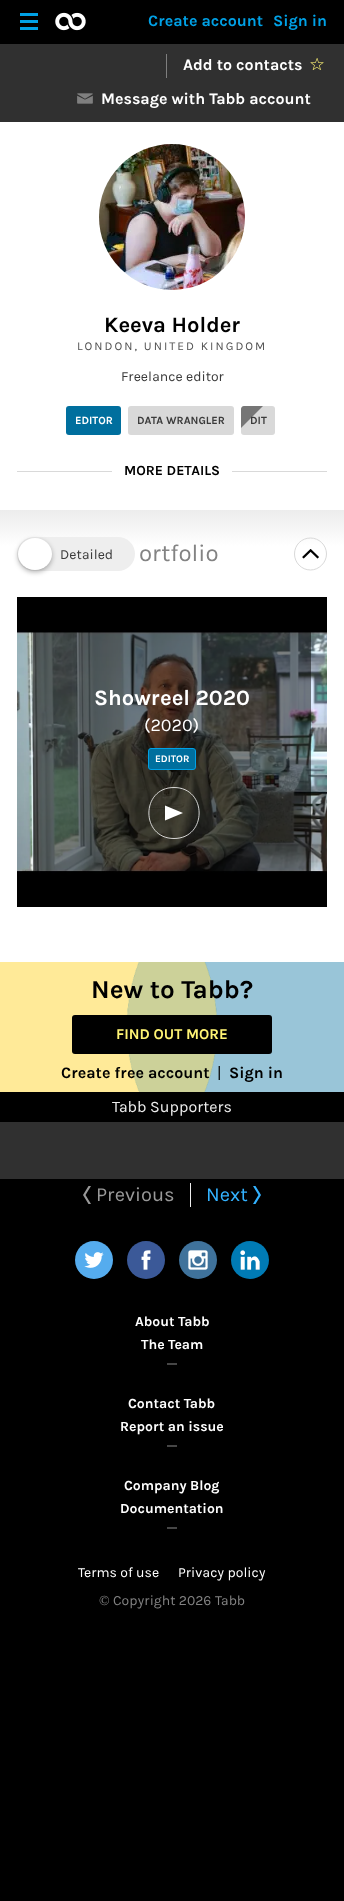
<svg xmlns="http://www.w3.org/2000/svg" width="344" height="1901">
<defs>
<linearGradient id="g1" gradientUnits="userSpaceOnUse" x1="172" y1="510" x2="172" y2="962"><stop offset="0" stop-color="#ececec"/><stop offset="0.08" stop-color="#fff"/></linearGradient>
</defs>
<rect width="100%" height="100%" fill="#000"/>
<rect y="122" width="344" height="388" fill="#fff"/>
<rect x="20" y="20" width="18" height="3" fill="#00a1e6"/>
<rect x="20" y="13" width="18" height="3" fill="#00a1e6"/>
<rect x="20" y="27" width="18" height="3" fill="#00a1e6"/>
<image x="55" y="12" width="31" height="19" href="media/1.png"/>
<text x="148" y="26" style="font-family:Karla;font-size:16px;font-weight:bold;fill:#00a1e6">Create account</text>
<text x="273" y="26" style="font-family:Karla;font-size:16px;font-weight:bold;fill:#00a1e6">Sign in</text>
<rect y="44" width="344" height="78" fill="#303030"/>
<rect x="166" y="54" width="1" height="24" fill="#7f7f7f"/>
<text x="183" y="70" style="font-family:Karla;font-size:16px;font-weight:bold;fill:#fff">Add to contacts</text>
<image x="310" y="58" width="14" height="12" href="media/2.png"/>
<image x="77" y="93" width="16" height="11" href="media/3.png"/>
<text x="101" y="104" style="font-family:Karla;font-size:16px;font-weight:bold;fill:#fff">Message with Tabb account</text>
<image x="99" y="144" width="146" height="146" href="media/4.png"/>
<text x="104" y="332" style="font-family:Karla;font-size:22px;font-weight:bold;fill:#000">Keeva Holder</text>
<text x="77" y="350" style="font-family:Karla;font-size:12px;letter-spacing:2px;fill:#525252">LONDON, UNITED KINGDOM</text>
<text x="121" y="381" style="font-family:Karla;font-size:14px;fill:#3b3b3b">Freelance editor</text>
<rect x="66" y="406" width="55" height="29" rx="3" fill="#006f9e"/>
<text x="75" y="424" style="font-family:Karla;font-size:11px;font-weight:bold;fill:#fff">EDITOR</text>
<rect x="128" y="406" width="106" height="29" rx="3" fill="#d9d9d9"/>
<text x="137" y="424" style="font-family:Karla;font-size:11px;font-weight:bold;fill:#3b3b3b">DATA WRANGLER</text>
<rect x="241" y="406" width="34" height="29" rx="3" fill="#d9d9d9"/>
<path d="M244 406h21v24h-24v-21c0-1.5 1.5-3 3-3z" fill="#767676"/>
<rect x="263" y="406" width="2" height="24" fill="#d9d9d9"/>
<rect x="241" y="428" width="24" height="2" fill="#d9d9d9"/>
<path d="M263 428h-22l22-22z" fill="#d9d9d9"/>
<text x="250" y="424" style="font-family:Karla;font-size:11px;font-weight:bold;fill:#3b3b3b">DIT</text>
<rect x="17" y="471" width="310" height="1" fill="#d9d9d9"/>
<rect x="112" y="471" width="120" height="1" fill="#fff"/>
<text x="124" y="475" style="font-family:Karla;font-size:14px;font-weight:bold;fill:#000">MORE DETAILS</text>
<rect y="510" width="344" height="452" fill="url(#g1)"/>
<rect x="17" y="537" width="118" height="34" rx="17" fill="#eee"/>
<rect x="18" y="540" width="34" height="32" rx="16" fill="#0000004d" filter="blur(2.5px)"/>
<ellipse cx="35" cy="554" rx="17" ry="16" fill="#fff"/>
<text x="60" y="559" style="font-family:Karla;font-size:14px;fill:#3b3b3b">Detailed</text>
<text x="139" y="561" style="font-family:Karla;font-size:24px;fill:#838383">ortfolio</text>
<path d="M310.5 570c-9 0-16-7.5-16-16c0-9 7-16 16-16c8.5 0 16 7 16 16c0 8.5-7.5 16-16 16z" fill="none" stroke="#d9d9d9"/>
<image x="302" y="549" width="17" height="10" href="media/5.png"/>
<image x="17" y="597" width="310" height="310" href="media/6.png"/>
<rect x="33" y="631" width="278" height="241" fill="#00000080"/>
<text x="94" y="705" style="font-family:Karla;font-size:22px;font-weight:bold;fill:#fff">Showreel 2020</text>
<text x="144" y="731" style="font-family:Karla;font-size:18px;fill:#fff">(2020)</text>
<rect x="148.5" y="748.5" width="47" height="21" rx="2.5" fill="#006f9e" stroke="#00a1e6"/>
<text x="155" y="762" style="font-family:Karla;font-size:10px;font-weight:bold;fill:#fff">EDITOR</text>
<path d="M174 787.5c33.5 0 33.5 51 0 51c-33.5 0-33.5-51 0-51z" fill="none" stroke="#fff" stroke-width="0.8"/>
<path d="M165 805.5l18 7.5l-18 7.5z" fill="#fff" fill-rule="evenodd"/>
<image x="0" y="962" width="344" height="130" href="media/7.png"/>
<text x="91" y="998" style="font-family:Karla;font-size:26px;font-weight:bold;fill:#000">New to Tabb?</text>
<rect x="72" y="1015" width="200" height="39" rx="3" fill="#000"/>
<text x="116" y="1039" style="font-family:Karla;font-size:15px;font-weight:bold;fill:#fff474">FIND OUT MORE</text>
<text x="61" y="1078" style="font-family:Karla;font-size:16px;font-weight:bold;fill:#000">Create free account</text>
<text x="217" y="1078" style="font-family:Karla;font-size:16px;fill:#000">|</text>
<text x="229" y="1078" style="font-family:Karla;font-size:16px;font-weight:bold;fill:#000">Sign in</text>
<text x="112" y="1112" style="font-family:Karla;font-size:16px;fill:#eee">Tabb Supporters</text>
<rect y="1122" width="344" height="57" fill="#303030"/>
<path d="M88.5 1186h2.5l-5.5 9l5.5 9h-2.5l-5.5-9z" fill="#999" fill-rule="evenodd"/>
<text x="96" y="1201" style="font-family:Karla;font-size:20px;fill:#999">Previous</text>
<rect x="190" y="1183" width="1" height="24" fill="#eee"/>
<text x="206" y="1201" style="font-family:Karla;font-size:20px;fill:#33b2ff">Next</text>
<path d="M255.5 1204h-2.5l5.5-9l-5.5-9h2.5l5.5 9z" fill="#33b2ff" fill-rule="evenodd"/>
<circle cx="94" cy="1260" r="19" fill="#55acee"/>
<image x="84" y="1252" width="20" height="16" href="media/8.png"/>
<circle cx="146" cy="1260" r="19" fill="#3b5998"/>
<image x="141" y="1250" width="10" height="20" href="media/9.png"/>
<circle cx="198" cy="1260" r="19" fill="#3f729b"/>
<image x="188" y="1250" width="20" height="20" href="media/10.png"/>
<circle cx="250" cy="1260" r="19" fill="#007bb5"/>
<image x="240" y="1250" width="20" height="20" href="media/11.png"/>
<text x="135" y="1326" style="font-family:Karla;font-size:14px;font-weight:bold;fill:#fff">About Tabb</text>
<text x="141" y="1349" style="font-family:Karla;font-size:14px;font-weight:bold;fill:#fff">The Team</text>
<rect x="167" y="1363" width="10" height="2" fill="#464646"/>
<text x="128" y="1408" style="font-family:Karla;font-size:14px;font-weight:bold;fill:#fff">Contact Tabb</text>
<text x="120" y="1431" style="font-family:Karla;font-size:14px;font-weight:bold;fill:#fff">Report an issue</text>
<rect x="167" y="1445" width="10" height="2" fill="#464646"/>
<text x="124" y="1490" style="font-family:Karla;font-size:14px;font-weight:bold;fill:#fff">Company Blog</text>
<text x="120" y="1513" style="font-family:Karla;font-size:14px;font-weight:bold;fill:#fff">Documentation</text>
<rect x="167" y="1527" width="10" height="2" fill="#464646"/>
<text x="78" y="1577" style="font-family:Karla;font-size:14px;fill:#fff">Terms of use</text>
<text x="178" y="1577" style="font-family:Karla;font-size:14px;fill:#fff">Privacy policy</text>
<text x="99" y="1605" style="font-family:Liberation Serif;font-size:14px;fill:#838383">©</text>
<text x="113" y="1605" style="font-family:Karla;font-size:14px;fill:#838383">Copyright 2026</text>
<text x="215" y="1605" style="font-family:Karla;font-size:14px;fill:#838383">Tabb</text>
</svg>
